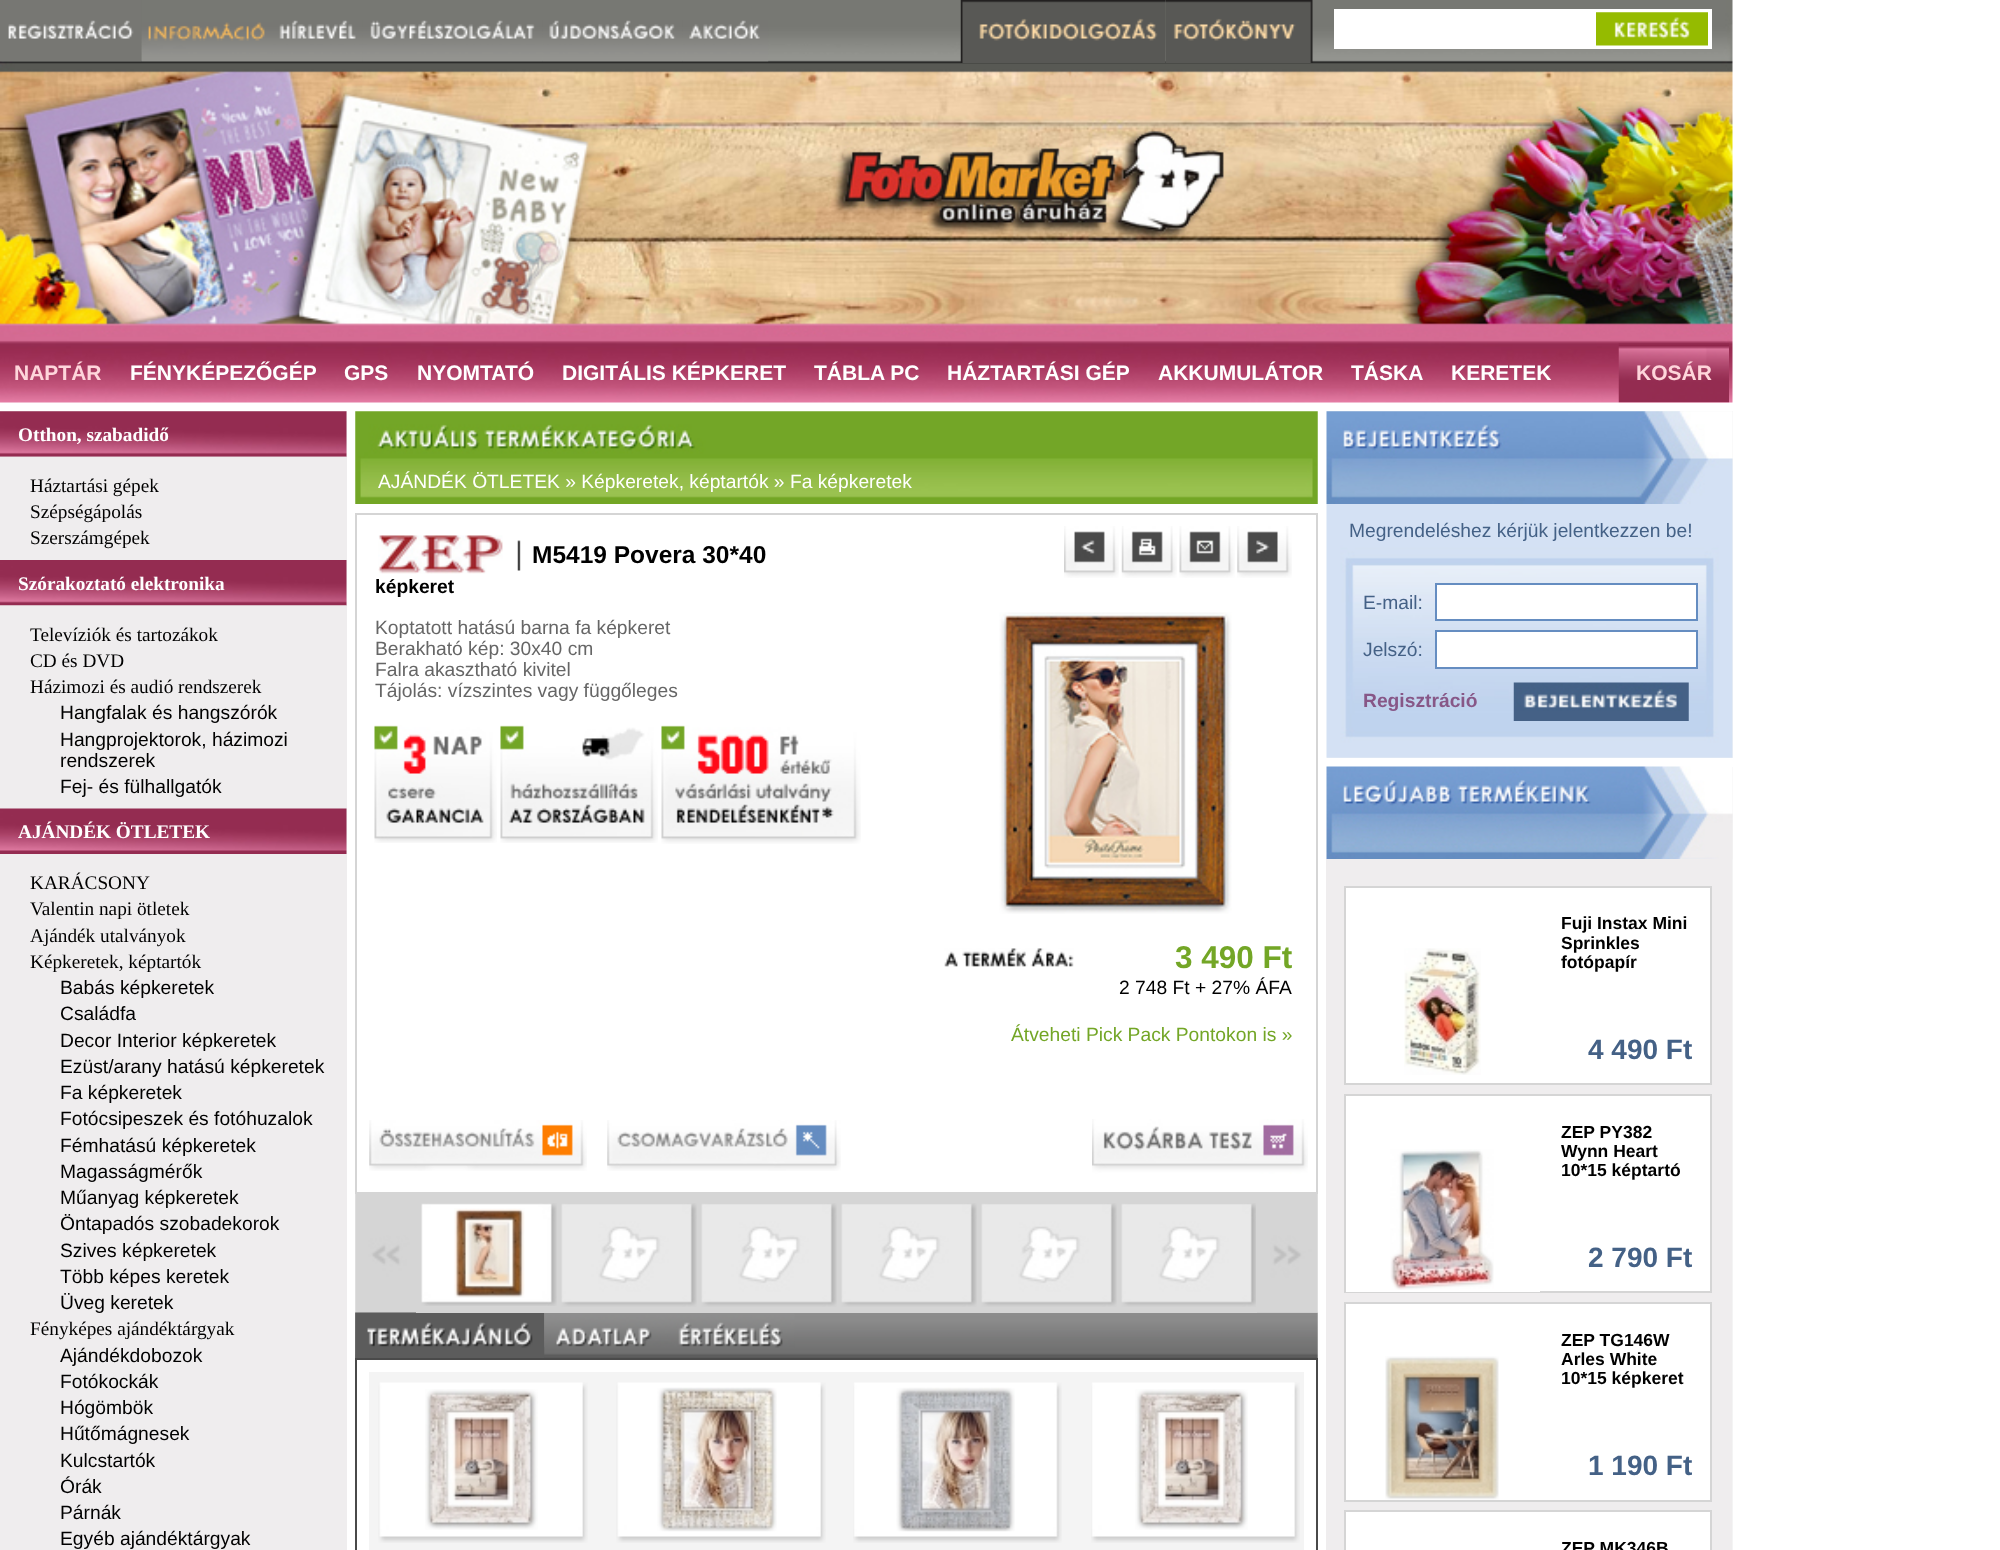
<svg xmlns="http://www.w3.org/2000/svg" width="2000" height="1550">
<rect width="100%" height="100%" fill="#fff"/>
<image x="0" y="0" width="1733" height="403" href="media/1.png"/>
<image x="0" y="0" width="142" height="62" href="media/2.png"/>
<image x="141" y="22" width="132" height="40" href="media/3.png"/>
<image x="273" y="20" width="90" height="42" href="media/4.png"/>
<image x="362" y="20" width="181" height="42" href="media/5.png"/>
<image x="542" y="20" width="141" height="42" href="media/6.png"/>
<image x="682" y="20" width="87" height="42" href="media/7.png"/>
<image x="960" y="0" width="206" height="63" href="media/8.png"/>
<image x="1165" y="0" width="148" height="63" href="media/9.png"/>
<rect x="1334" y="9" width="378" height="40" fill="#fff"/>
<image x="1596" y="12" width="112" height="34" href="media/10.png"/>
<text x="14" y="380" style="font-family:Liberation Sans;font-size:21px;font-weight:bold;fill:#fed5db">NAPTÁR</text>
<text x="130" y="380" style="font-family:Liberation Sans;font-size:21px;font-weight:bold;fill:#fff">FÉNYKÉPEZŐGÉP</text>
<text x="344" y="380" style="font-family:Liberation Sans;font-size:21px;font-weight:bold;fill:#fff">GPS</text>
<text x="417" y="380" style="font-family:Liberation Sans;font-size:21px;font-weight:bold;fill:#fff">NYOMTATÓ</text>
<text x="562" y="380" style="font-family:Liberation Sans;font-size:21px;font-weight:bold;fill:#fff">DIGITÁLIS KÉPKERET</text>
<text x="814" y="380" style="font-family:Liberation Sans;font-size:21px;font-weight:bold;fill:#fff">TÁBLA PC</text>
<text x="947" y="380" style="font-family:Liberation Sans;font-size:21px;font-weight:bold;fill:#fff">HÁZTARTÁSI GÉP</text>
<text x="1158" y="380" style="font-family:Liberation Sans;font-size:21px;font-weight:bold;fill:#fff">AKKUMULÁTOR</text>
<text x="1351" y="380" style="font-family:Liberation Sans;font-size:21px;font-weight:bold;fill:#fff">TÁSKA</text>
<text x="1451" y="380" style="font-family:Liberation Sans;font-size:21px;font-weight:bold;fill:#fff">KERETEK</text>
<image x="1618" y="343" width="111" height="60" href="media/11.png"/>
<text x="1636" y="380" style="font-family:Liberation Sans;font-size:21px;font-weight:bold;fill:#fed5db">KOSÁR</text>
<rect y="411" width="347" height="1139" fill="#efedee"/>
<image x="0" y="411" width="347" height="46" href="media/12.png"/>
<text x="18" y="441" style="font-family:Liberation Serif;font-size:19.25px;font-weight:bold;fill:#fff">Otthon, szabadidő</text>
<image x="0" y="456" width="347" height="1" href="media/13.png"/>
<text x="30" y="492" style="font-family:Liberation Serif;font-size:19.25px;fill:#000">Háztartási gépek</text>
<text x="30" y="518" style="font-family:Liberation Serif;font-size:19.25px;fill:#000">Szépségápolás</text>
<text x="30" y="544" style="font-family:Liberation Serif;font-size:19.25px;fill:#000">Szerszámgépek</text>
<image x="0" y="560" width="347" height="46" href="media/14.png"/>
<text x="18" y="590" style="font-family:Liberation Serif;font-size:19.25px;font-weight:bold;fill:#fff">Szórakoztató elektronika</text>
<image x="0" y="605" width="347" height="1" href="media/15.png"/>
<text x="30" y="641" style="font-family:Liberation Serif;font-size:19.25px;fill:#000">Televíziók és tartozákok</text>
<text x="30" y="667" style="font-family:Liberation Serif;font-size:19.25px;fill:#000">CD és DVD</text>
<text x="30" y="693" style="font-family:Liberation Serif;font-size:19.25px;fill:#000">Házimozi és audió rendszerek</text>
<text x="60" y="719" style="font-family:Liberation Sans;font-size:19.25px;fill:#000">Hangfalak és hangszórók</text>
<text x="60" y="746" style="font-family:Liberation Sans;font-size:19.25px;fill:#000">Hangprojektorok, házimozi</text>
<text x="60" y="767" style="font-family:Liberation Sans;font-size:19.25px;fill:#000">rendszerek</text>
<text x="60" y="793" style="font-family:Liberation Sans;font-size:19.25px;fill:#000">Fej- és fülhallgatók</text>
<image x="0" y="808" width="347" height="46" href="media/16.png"/>
<text x="18" y="838" style="font-family:Liberation Serif;font-size:19.25px;font-weight:bold;fill:#fff">AJÁNDÉK ÖTLETEK</text>
<text x="30" y="889" style="font-family:Liberation Serif;font-size:19.25px;fill:#000">KARÁCSONY</text>
<text x="30" y="915" style="font-family:Liberation Serif;font-size:19.25px;fill:#000">Valentin napi ötletek</text>
<text x="30" y="942" style="font-family:Liberation Serif;font-size:19.25px;fill:#000">Ajándék utalványok</text>
<text x="30" y="968" style="font-family:Liberation Serif;font-size:19.25px;fill:#000">Képkeretek, képtartók</text>
<text x="60" y="994" style="font-family:Liberation Sans;font-size:19.25px;fill:#000">Babás képkeretek</text>
<text x="60" y="1020" style="font-family:Liberation Sans;font-size:19.25px;fill:#000">Családfa</text>
<text x="60" y="1047" style="font-family:Liberation Sans;font-size:19.25px;fill:#000">Decor Interior képkeretek</text>
<text x="60" y="1073" style="font-family:Liberation Sans;font-size:19.25px;fill:#000">Ezüst/arany hatású képkeretek</text>
<text x="60" y="1099" style="font-family:Liberation Sans;font-size:19.25px;fill:#000">Fa képkeretek</text>
<text x="60" y="1125" style="font-family:Liberation Sans;font-size:19.25px;fill:#000">Fotócsipeszek és fotóhuzalok</text>
<text x="60" y="1152" style="font-family:Liberation Sans;font-size:19.25px;fill:#000">Fémhatású képkeretek</text>
<text x="60" y="1178" style="font-family:Liberation Sans;font-size:19.25px;fill:#000">Magasságmérők</text>
<text x="60" y="1204" style="font-family:Liberation Sans;font-size:19.25px;fill:#000">Műanyag képkeretek</text>
<text x="60" y="1230" style="font-family:Liberation Sans;font-size:19.25px;fill:#000">Öntapadós szobadekorok</text>
<text x="60" y="1257" style="font-family:Liberation Sans;font-size:19.25px;fill:#000">Szives képkeretek</text>
<text x="60" y="1283" style="font-family:Liberation Sans;font-size:19.25px;fill:#000">Több képes keretek</text>
<text x="60" y="1309" style="font-family:Liberation Sans;font-size:19.25px;fill:#000">Üveg keretek</text>
<text x="30" y="1335" style="font-family:Liberation Serif;font-size:19.25px;fill:#000">Fényképes ajándéktárgyak</text>
<text x="60" y="1362" style="font-family:Liberation Sans;font-size:19.25px;fill:#000">Ajándékdobozok</text>
<text x="60" y="1388" style="font-family:Liberation Sans;font-size:19.25px;fill:#000">Fotókockák</text>
<text x="60" y="1414" style="font-family:Liberation Sans;font-size:19.25px;fill:#000">Hógömbök</text>
<text x="60" y="1440" style="font-family:Liberation Sans;font-size:19.25px;fill:#000">Hűtőmágnesek</text>
<text x="60" y="1467" style="font-family:Liberation Sans;font-size:19.25px;fill:#000">Kulcstartók</text>
<text x="60" y="1493" style="font-family:Liberation Sans;font-size:19.25px;fill:#000">Órák</text>
<text x="60" y="1519" style="font-family:Liberation Sans;font-size:19.25px;fill:#000">Párnák</text>
<text x="60" y="1545" style="font-family:Liberation Sans;font-size:19.25px;fill:#000">Egyéb ajándéktárgyak</text>
<image x="355" y="411" width="963" height="93" href="media/17.png"/>
<text x="378" y="488" style="font-family:Liberation Sans;font-size:19.25px;fill:#fff">AJÁNDÉK ÖTLETEK » Képkeretek, képtartók » Fa képkeretek</text>
<rect x="356" y="514" width="961" height="679" fill="none" stroke="#d5d5d5" stroke-width="2"/>
<image x="378" y="535" width="125" height="39" href="media/18.png"/>
<image x="517" y="540" width="4" height="31" href="media/19.png"/>
<text x="532" y="563" style="font-family:Liberation Sans;font-size:24.5px;font-weight:bold;fill:#000">M5419 Povera 30*40</text>
<text x="375" y="593" style="font-family:Liberation Sans;font-size:19.25px;font-weight:bold;fill:#000">képkeret</text>
<text x="375" y="634" style="font-family:Liberation Sans;font-size:19.25px;fill:#666">Koptatott hatású barna fa képkeret</text>
<text x="375" y="655" style="font-family:Liberation Sans;font-size:19.25px;fill:#666">Berakható kép: 30x40 cm</text>
<text x="375" y="676" style="font-family:Liberation Sans;font-size:19.25px;fill:#666">Falra akasztható kivitel</text>
<text x="375" y="697" style="font-family:Liberation Sans;font-size:19.25px;fill:#666">Tájolás: vízszintes vagy függőleges</text>
<image x="374" y="725" width="123" height="118" href="media/20.png"/>
<image x="500" y="725" width="158" height="118" href="media/21.png"/>
<image x="661" y="725" width="200" height="119" href="media/22.png"/>
<image x="1064" y="526" width="55" height="52" href="media/23.png"/>
<image x="1121" y="526" width="56" height="52" href="media/24.png"/>
<image x="1179" y="526" width="56" height="52" href="media/25.png"/>
<image x="1237" y="526" width="55" height="52" href="media/26.png"/>
<image x="999" y="612" width="233" height="302" href="media/27.png"/>
<image x="944" y="948" width="130" height="19" href="media/28.png"/>
<text x="1175" y="968" style="font-family:Liberation Sans;font-size:31.5px;font-weight:bold;fill:#73a626">3 490 Ft</text>
<text x="1119" y="994" style="font-family:Liberation Sans;font-size:19.25px;fill:#000">2 748 Ft + 27% ÁFA</text>
<text x="1011" y="1041" style="font-family:Liberation Sans;font-size:19.25px;fill:#73a626">Átveheti Pick Pack Pontokon is »</text>
<image x="369" y="1120" width="218" height="51" href="media/29.png"/>
<image x="607" y="1120" width="234" height="51" href="media/30.png"/>
<image x="1092" y="1119" width="216" height="55" href="media/31.png"/>
<image x="355" y="1312" width="963" height="46" href="media/39.png"/>
<image x="355" y="1194" width="61" height="119" href="media/32.png"/>
<image x="355" y="1312" width="190" height="46" href="media/40.png"/>
<rect x="416" y="1194" width="841" height="119" fill="#d5d5d5"/>
<image x="421" y="1203" width="136" height="103" href="media/33.png"/>
<image x="454" y="1208" width="71" height="90" href="media/34.png"/>
<image x="561" y="1203" width="136" height="104" href="media/35.png"/>
<image x="701" y="1203" width="136" height="104" href="media/36.png"/>
<image x="841" y="1203" width="136" height="104" href="media/36.png"/>
<image x="981" y="1203" width="136" height="104" href="media/35.png"/>
<image x="1121" y="1203" width="135" height="104" href="media/37.png"/>
<image x="1257" y="1194" width="61" height="119" href="media/38.png"/>
<image x="544" y="1313" width="121" height="34" href="media/41.png"/>
<image x="665" y="1313" width="130" height="35" href="media/42.png"/>
<rect x="356" y="1359" width="961" height="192" fill="none" stroke="#4a4a4a" stroke-width="2"/>
<rect x="369" y="1372" width="935" height="178" fill="#f4f4f4"/>
<image x="378" y="1382" width="210" height="161" href="media/43.png"/>
<image x="425" y="1389" width="113" height="141" href="media/44.png"/>
<image x="616" y="1382" width="210" height="161" href="media/43.png"/>
<image x="657" y="1387" width="120" height="145" href="media/45.png"/>
<image x="853" y="1382" width="209" height="161" href="media/46.png"/>
<image x="896" y="1387" width="119" height="145" href="media/47.png"/>
<image x="1091" y="1382" width="209" height="161" href="media/48.png"/>
<image x="1135" y="1389" width="113" height="141" href="media/49.png"/>
<rect x="1327" y="411" width="406" height="1139" fill="#f4f4f4"/>
<image x="1326" y="411" width="407" height="93" href="media/50.png"/>
<image x="1326" y="504" width="407" height="254" href="media/51.png"/>
<text x="1349" y="537" style="font-family:Liberation Sans;font-size:19.25px;fill:#446186">Megrendeléshez kérjük jelentkezzen be!</text>
<text x="1363" y="609" style="font-family:Liberation Sans;font-size:19.25px;fill:#446186">E-mail:</text>
<rect x="1436" y="584" width="261" height="36" fill="#fff" stroke="#658dc1" stroke-width="2"/>
<text x="1363" y="656" style="font-family:Liberation Sans;font-size:19.25px;fill:#446186">Jelszó:</text>
<rect x="1436" y="631" width="261" height="37" fill="#fff" stroke="#658dc1" stroke-width="2"/>
<text x="1363" y="707" style="font-family:Liberation Sans;font-size:19.25px;font-weight:bold;fill:#875787">Regisztráció</text>
<image x="1513" y="682" width="176" height="39" href="media/52.png"/>
<rect x="1327" y="758" width="406" height="9" fill="#fff"/>
<image x="1326" y="766" width="407" height="94" href="media/53.png"/>
<rect x="1326" y="859" width="406" height="691" fill="#efedee"/>
<rect x="1345" y="887" width="366" height="197" fill="#fff" stroke="#d5d5d5" stroke-width="2"/>
<image x="1404" y="948" width="77" height="127" href="media/54.png"/>
<text x="1561" y="929" style="font-family:Liberation Sans;font-size:17.5px;font-weight:bold;fill:#000">Fuji Instax Mini</text>
<text x="1561" y="949" style="font-family:Liberation Sans;font-size:17.5px;font-weight:bold;fill:#000">Sprinkles</text>
<text x="1561" y="968" style="font-family:Liberation Sans;font-size:17.5px;font-weight:bold;fill:#000">fotópapír</text>
<text x="1588" y="1059" style="font-family:Liberation Sans;font-size:28px;font-weight:bold;fill:#446186">4 490 Ft</text>
<rect x="1345" y="1095" width="366" height="197" fill="#fff" stroke="#d5d5d5" stroke-width="2"/>
<rect x="1346" y="1291" width="194" height="1" fill="#fff"/>
<image x="1390" y="1149" width="104" height="141" href="media/55.png"/>
<text x="1561" y="1138" style="font-family:Liberation Sans;font-size:17.5px;font-weight:bold;fill:#000">ZEP PY382</text>
<text x="1561" y="1157" style="font-family:Liberation Sans;font-size:17.5px;font-weight:bold;fill:#000">Wynn Heart</text>
<text x="1561" y="1176" style="font-family:Liberation Sans;font-size:17.5px;font-weight:bold;fill:#000">10*15 képtartó</text>
<text x="1588" y="1267" style="font-family:Liberation Sans;font-size:28px;font-weight:bold;fill:#446186">2 790 Ft</text>
<rect x="1345" y="1303" width="366" height="198" fill="#fff" stroke="#d5d5d5" stroke-width="2"/>
<image x="1385" y="1356" width="114" height="144" href="media/56.png"/>
<text x="1561" y="1346" style="font-family:Liberation Sans;font-size:17.5px;font-weight:bold;fill:#000">ZEP TG146W</text>
<text x="1561" y="1365" style="font-family:Liberation Sans;font-size:17.5px;font-weight:bold;fill:#000">Arles White</text>
<text x="1561" y="1384" style="font-family:Liberation Sans;font-size:17.5px;font-weight:bold;fill:#000">10*15 képkeret</text>
<text x="1588" y="1475" style="font-family:Liberation Sans;font-size:28px;font-weight:bold;fill:#446186">1 190 Ft</text>
<rect x="1345" y="1511" width="366" height="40" fill="#fff" stroke="#d5d5d5" stroke-width="2"/>
<text x="1561" y="1554" style="font-family:Liberation Sans;font-size:17.5px;font-weight:bold;fill:#000">ZEP MK346B</text>
</svg>
